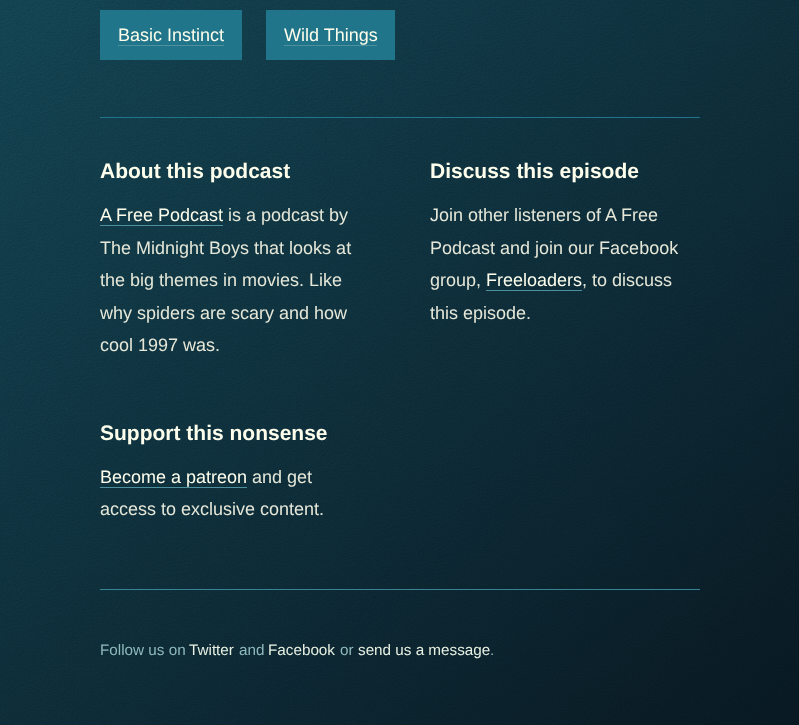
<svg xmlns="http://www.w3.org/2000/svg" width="799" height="725">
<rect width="100%" height="100%" fill="#fff"/>
<image x="0" y="0" width="799" height="725" href="media/1.png"/>
<rect x="100" y="10" width="142" height="50" fill="#21758a"/>
<text x="118" y="41" style="font-family:Liberation Sans;font-size:18px;fill:#fdfeec">Basic Instinct</text>
<rect x="118" y="45" width="106" height="1" fill="#4d909e"/>
<rect x="266" y="10" width="129" height="50" fill="#21758a"/>
<text x="284" y="41" style="font-family:Liberation Sans;font-size:18px;fill:#fdfeec">Wild Things</text>
<rect x="284" y="45" width="93" height="1" fill="#4d909e"/>
<rect x="100" y="117" width="600" height="1" fill="#21758a"/>
<text x="100" y="178" style="font-family:Liberation Sans;font-size:21px;font-weight:bold;fill:#fdfeec">About this podcast</text>
<text x="100" y="221" style="font-family:Liberation Sans;font-size:18px;fill:#fdfeec">A Free Podcast</text>
<rect x="100" y="225" width="123" height="1" fill="#4d909e"/>
<text x="228" y="221" style="font-family:Liberation Sans;font-size:18px;fill:#e5e7d8">is a podcast by</text>
<text x="100" y="254" style="font-family:Liberation Sans;font-size:18px;fill:#e5e7d8">The Midnight Boys that looks at</text>
<text x="100" y="286" style="font-family:Liberation Sans;font-size:18px;fill:#e5e7d8">the big themes in movies. Like</text>
<text x="100" y="319" style="font-family:Liberation Sans;font-size:18px;fill:#e5e7d8">why spiders are scary and how</text>
<text x="100" y="351" style="font-family:Liberation Sans;font-size:18px;fill:#e5e7d8">cool 1997 was.</text>
<text x="430" y="178" style="font-family:Liberation Sans;font-size:21px;font-weight:bold;fill:#fdfeec">Discuss this episode</text>
<text x="430" y="221" style="font-family:Liberation Sans;font-size:18px;fill:#e5e7d8">Join other listeners of A Free</text>
<text x="430" y="254" style="font-family:Liberation Sans;font-size:18px;fill:#e5e7d8">Podcast and join our Facebook</text>
<text x="430" y="286" style="font-family:Liberation Sans;font-size:18px;fill:#e5e7d8">group,</text>
<text x="486" y="286" style="font-family:Liberation Sans;font-size:18px;fill:#fdfeec">Freeloaders</text>
<rect x="486" y="290" width="96" height="1" fill="#4d909e"/>
<text x="582" y="286" style="font-family:Liberation Sans;font-size:18px;fill:#e5e7d8">, to discuss</text>
<text x="430" y="319" style="font-family:Liberation Sans;font-size:18px;fill:#e5e7d8">this episode.</text>
<text x="100" y="440" style="font-family:Liberation Sans;font-size:21px;font-weight:bold;fill:#fdfeec">Support this nonsense</text>
<text x="100" y="483" style="font-family:Liberation Sans;font-size:18px;fill:#fdfeec">Become a patreon</text>
<rect x="100" y="487" width="147" height="1" fill="#4d909e"/>
<text x="252" y="483" style="font-family:Liberation Sans;font-size:18px;fill:#e5e7d8">and get</text>
<text x="100" y="515" style="font-family:Liberation Sans;font-size:18px;fill:#e5e7d8">access to exclusive content.</text>
<rect x="100" y="589" width="600" height="1" fill="#378394"/>
<text x="100" y="655" style="font-family:Liberation Sans;font-size:15.25px;fill:#8fbabb">Follow us on</text>
<text x="189" y="655" style="font-family:Liberation Sans;font-size:15.25px;fill:#e7f0e2">Twitter</text>
<text x="239" y="655" style="font-family:Liberation Sans;font-size:15.25px;fill:#8fbabb">and</text>
<text x="268" y="655" style="font-family:Liberation Sans;font-size:15.25px;fill:#e7f0e2">Facebook</text>
<text x="340" y="655" style="font-family:Liberation Sans;font-size:15.25px;fill:#8fbabb">or</text>
<text x="358" y="655" style="font-family:Liberation Sans;font-size:15.25px;fill:#e7f0e2">send us a message</text>
<text x="490" y="655" style="font-family:Liberation Sans;font-size:15.25px;fill:#8fbabb">.</text>
</svg>
